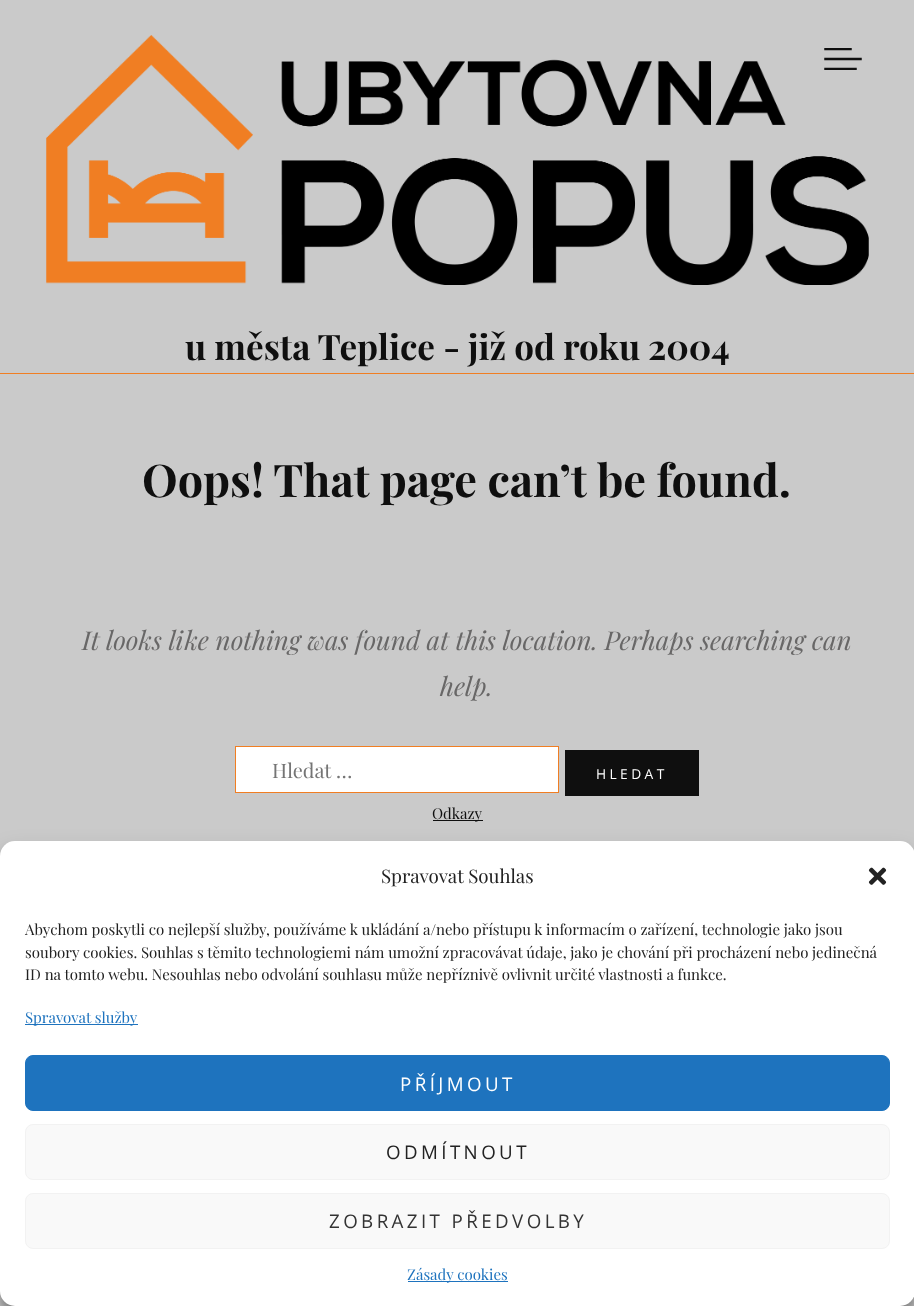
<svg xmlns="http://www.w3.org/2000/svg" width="914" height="1306">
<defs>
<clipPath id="clip1"><rect x="824" y="48" width="39" height="22"/></clipPath>
</defs>
<rect width="100%" height="100%" fill="#cacaca"/>
<rect y="373" width="914" height="1" fill="#f07e23"/>
<image x="46" y="35" width="823" height="250" href="media/1.png"/>
<g clip-path="url(#clip1)">
<path d="M825.5 59h35m-35 10h30m-30-20h25" fill="none" stroke="#0f0f0f" stroke-width="2.5" stroke-linecap="square"/>
</g>
<text x="185" y="360" style="font-family:Playfair Display;font-size:35px;font-weight:bold;fill:#0f0f0f">u města Teplice - již od roku 2004</text>
<text x="142" y="497" style="font-family:Playfair Display;font-size:45px;font-weight:bold;fill:#0f0f0f">Oops! That page can’t be found.</text>
<text x="82" y="650" style="font-family:Playfair Display;font-size:26px;font-style:italic;fill:#686767">It looks like nothing was found at this location. Perhaps searching can</text>
<text x="440" y="696" style="font-family:Playfair Display;font-size:26px;font-style:italic;fill:#686767">help.</text>
<rect x="235.5" y="746.5" width="323" height="46" fill="#fff" stroke="#f07e23"/>
<text x="272" y="778" style="font-family:Playfair Display;font-size:20px;fill:#757575">Hledat …</text>
<rect x="565" y="750" width="134" height="46" fill="#0f0f0f"/>
<text x="596" y="779" style="font-family:Open Sans;font-size:13.75px;letter-spacing:3.4px;fill:#fff">HLEDAT</text>
<rect x="433" y="820" width="50" height="1" fill="#0f0f0f"/>
<text x="432" y="819" style="font-family:Playfair Display;font-size:15px;fill:#0f0f0f">Odkazy</text>
<rect y="849" width="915" height="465" rx="15" fill="#0000003b" filter="blur(4px)"/>
<rect y="854" width="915" height="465" rx="15" fill="#00000030" filter="blur(12.5px)"/>
<rect y="841" width="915" height="465" rx="15" fill="#fff"/>
<text x="381" y="883" style="font-family:Playfair Display;font-size:18.75px;fill:#222">Spravovat Souhlas</text>
<image x="868" y="867" width="19" height="18" href="media/2.png"/>
<text x="25" y="935" style="font-family:Playfair Display;font-size:15px;fill:#222">Abychom poskytli co nejlepší služby, používáme k ukládání a/nebo přístupu k informacím o zařízení, technologie jako jsou</text>
<text x="25" y="958" style="font-family:Playfair Display;font-size:15px;fill:#222">soubory cookies. Souhlas s těmito technologiemi nám umožní zpracovávat údaje, jako je chování při procházení nebo jedinečná</text>
<text x="25" y="980" style="font-family:Playfair Display;font-size:15px;fill:#222">ID na tomto webu. Nesouhlas nebo odvolání souhlasu může nepříznivě ovlivnit určité vlastnosti a funkce.</text>
<rect x="25" y="1024" width="113" height="1" fill="#1e73be"/>
<text x="25" y="1023" style="font-family:Playfair Display;font-size:15px;fill:#1e73be">Spravovat služby</text>
<rect x="25.5" y="1055.5" width="864" height="55" rx="7.5" fill="#1e73be" stroke="#1e73be"/>
<text x="400" y="1091" style="font-family:Open Sans;font-size:18.75px;letter-spacing:3.4px;fill:#fff">PŘÍJMOUT</text>
<rect x="25.5" y="1124.5" width="864" height="55" rx="7.5" fill="#f9f9f9" stroke="#f2f2f2"/>
<text x="386" y="1159" style="font-family:Open Sans;font-size:18.75px;letter-spacing:3.4px;fill:#222">ODMÍTNOUT</text>
<rect x="25.5" y="1193.5" width="864" height="55" rx="7.5" fill="#f9f9f9" stroke="#f2f2f2"/>
<text x="329" y="1228" style="font-family:Open Sans;font-size:18.75px;letter-spacing:3.4px;fill:#333">ZOBRAZIT PŘEDVOLBY</text>
<rect x="408" y="1281" width="100" height="1" fill="#1e73be"/>
<text x="407" y="1280" style="font-family:Playfair Display;font-size:15px;fill:#1e73be">Zásady cookies</text>
</svg>
